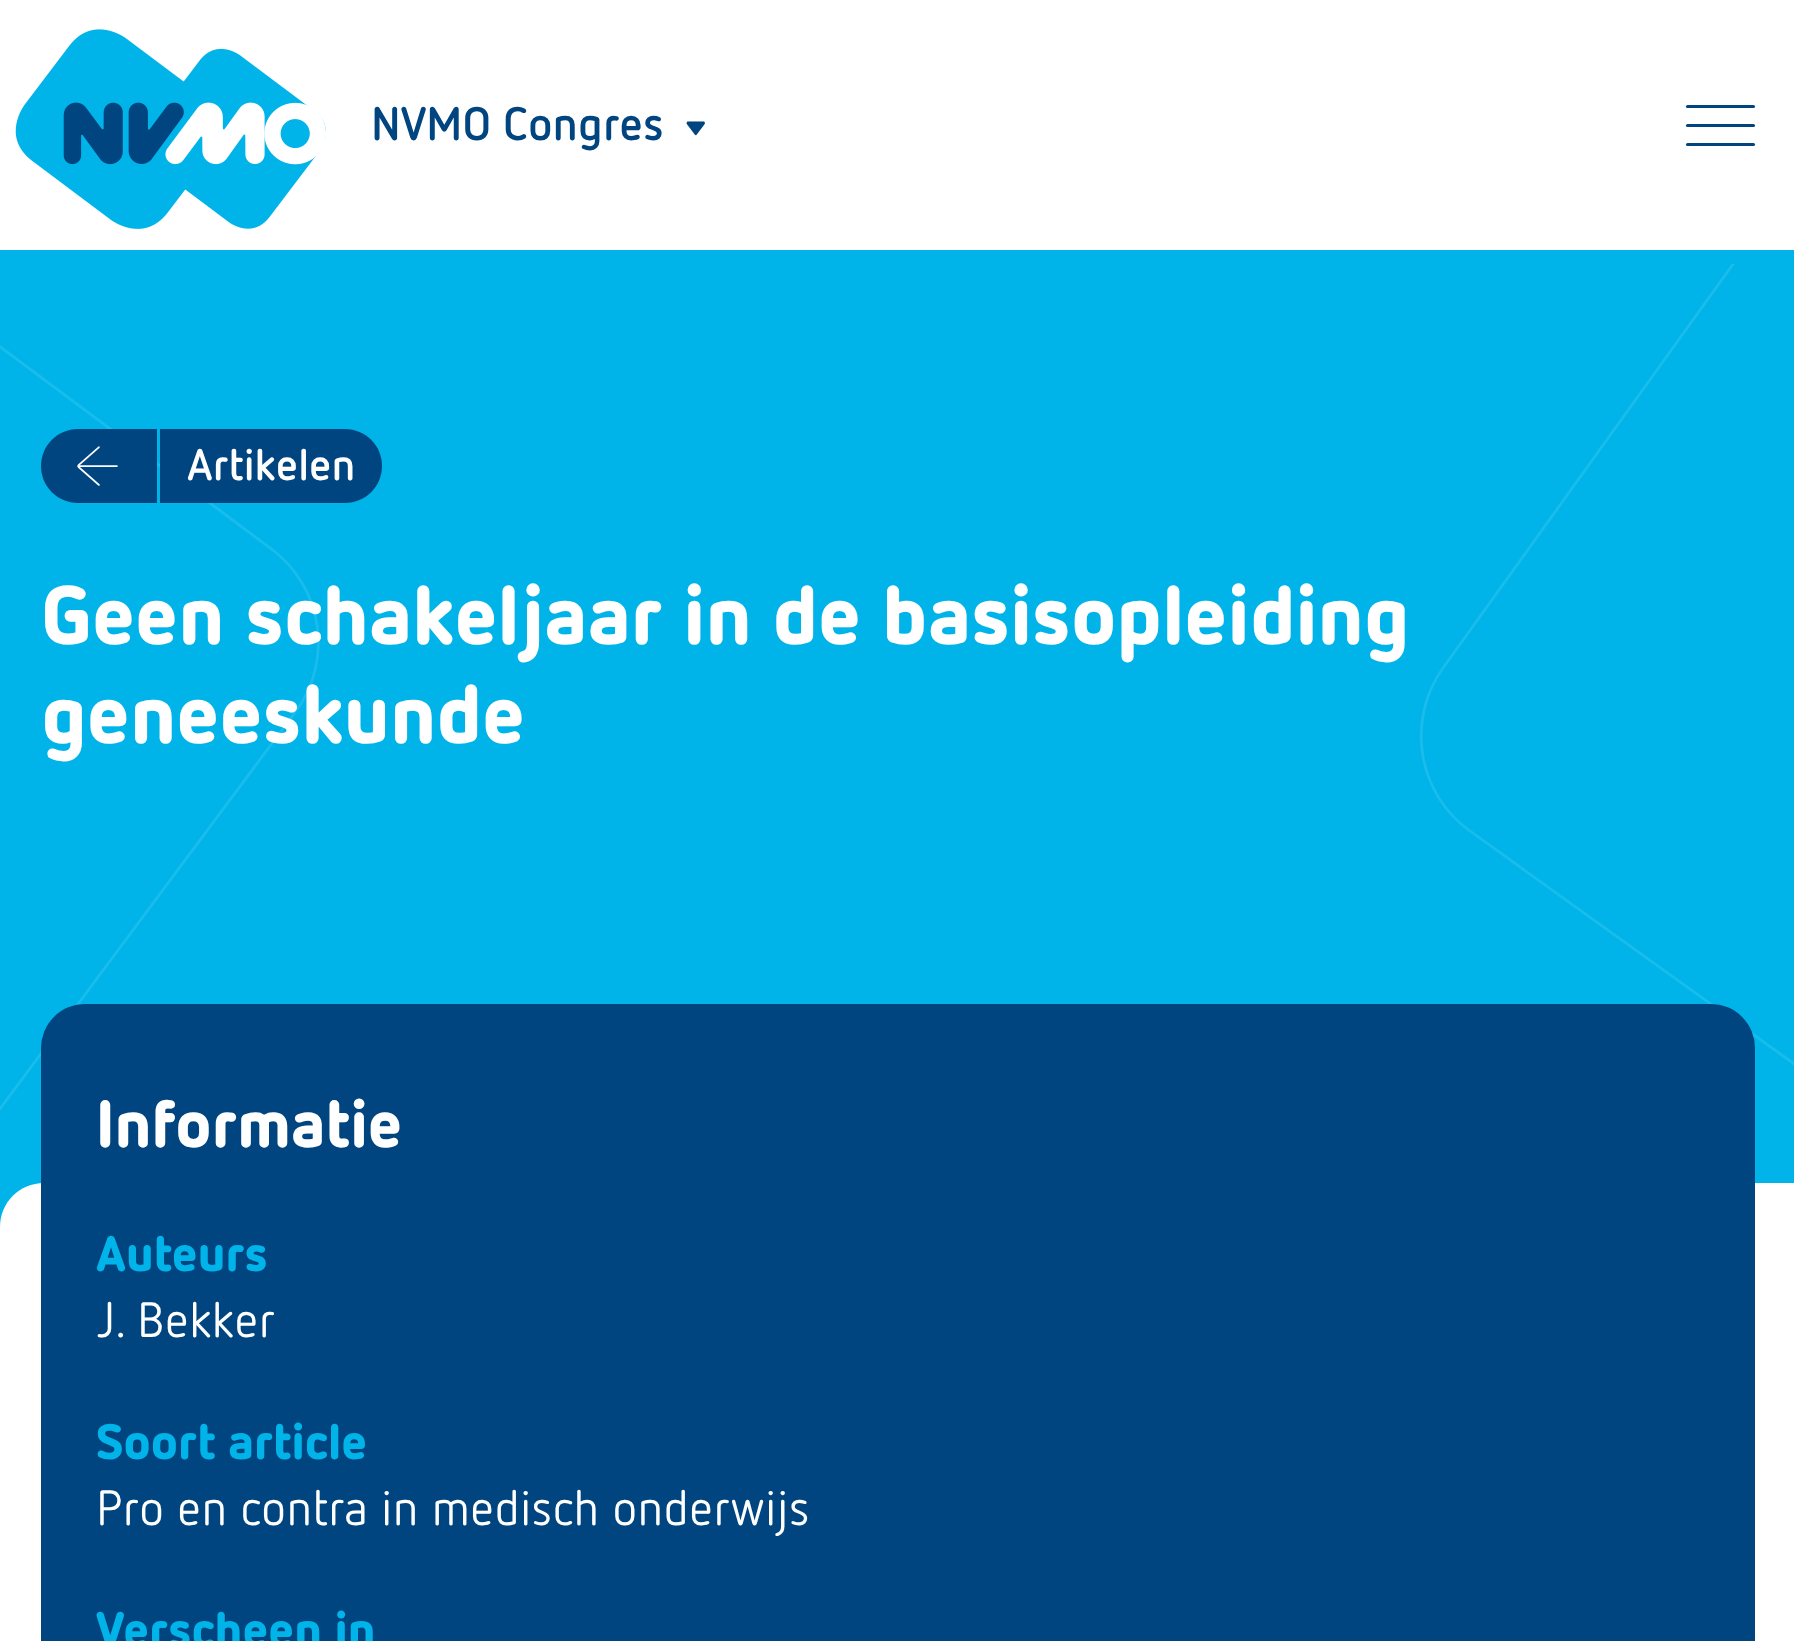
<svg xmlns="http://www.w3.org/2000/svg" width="1794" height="1641">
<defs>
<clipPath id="clip1"><rect y="264" width="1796" height="919"/></clipPath>
</defs>
<rect width="100%" height="100%" fill="#00b4ea"/>
<rect width="1794" height="250" fill="#fff"/>
<image x="15" y="29" width="311" height="200" href="media/1.png"/>
<text x="371" y="140" style="font-family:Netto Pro;font-size:46.75px;font-weight:bold;fill:#00457f">NVMO Congres</text>
<image x="686" y="121" width="19" height="15" href="media/2.png"/>
<rect x="1686" y="124" width="69" height="3" rx="1.5" fill="#00457f"/>
<rect x="1686" y="105" width="69" height="3" rx="1.5" fill="#00457f"/>
<rect x="1686" y="143" width="69" height="3" rx="1.5" fill="#00457f"/>
<path d="M-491.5-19.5l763 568.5c51.5 38.5 62.5 112 23.5 163.5l-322 432.5c-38.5 51.5-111.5 62.5-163.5 24l-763-568.5c-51.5-38.5-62.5-112-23.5-163.5l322-432.5c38.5-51.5 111.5-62.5 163.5-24z" fill="none" stroke="#1abcec" stroke-width="2.7"/>
<g clip-path="url(#clip1)">
<path d="M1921 203.5l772.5 555c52.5 37.5 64.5 110.5 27 163l-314.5 438c-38 52.5-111 64.5-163.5 26.5l-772.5-555c-52.5-37.5-64.5-110.5-27-163l314.5-438c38-52.5 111-64.5 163.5-26.5z" fill="none" stroke="#1abcec" stroke-width="2.7"/>
</g>
<path d="M78 429h79v74h-79c-20.5 0-37-16.5-37-37c0-20.5 16.5-37 37-37z" fill="#00457f"/>
<image x="77" y="446" width="41" height="40" href="media/3.png"/>
<path d="M160 429h185c20.5 0 37 16.5 37 37c0 20.5-16.5 37-37 37h-185z" fill="#00457f"/>
<text x="187" y="480" style="font-family:Netto Pro;font-size:44px;font-weight:bold;fill:#fff">Artikelen</text>
<text x="41" y="644" style="font-family:Netto Pro;font-size:82.5px;font-weight:900;fill:#fff">Geen schakeljaar in de basisopleiding</text>
<text x="41" y="743" style="font-family:Netto Pro;font-size:82.5px;font-weight:900;fill:#fff">geneeskunde</text>
<path d="M44 1183h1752v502h-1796v-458c0-24.5 19.5-44 44-44z" fill="#fff"/>
<rect x="41" y="1004" width="1714" height="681" rx="44" fill="#00457f"/>
<text x="96" y="1147" style="font-family:Netto Pro;font-size:66px;font-weight:900;fill:#fff">Informatie</text>
<text x="96" y="1271" style="font-family:Netto Pro;font-size:49.5px;font-weight:900;fill:#00b4ea">Auteurs</text>
<text x="96" y="1337" style="font-family:Netto Pro;font-size:49.5px;fill:#fff">J. Bekker</text>
<text x="96" y="1459" style="font-family:Netto Pro;font-size:49.5px;font-weight:900;fill:#00b4ea">Soort article</text>
<text x="96" y="1525" style="font-family:Netto Pro;font-size:49.5px;fill:#fff">Pro en contra in medisch onderwijs</text>
<text x="96" y="1647" style="font-family:Netto Pro;font-size:49.5px;font-weight:900;fill:#00b4ea">Verscheen in</text>
</svg>
